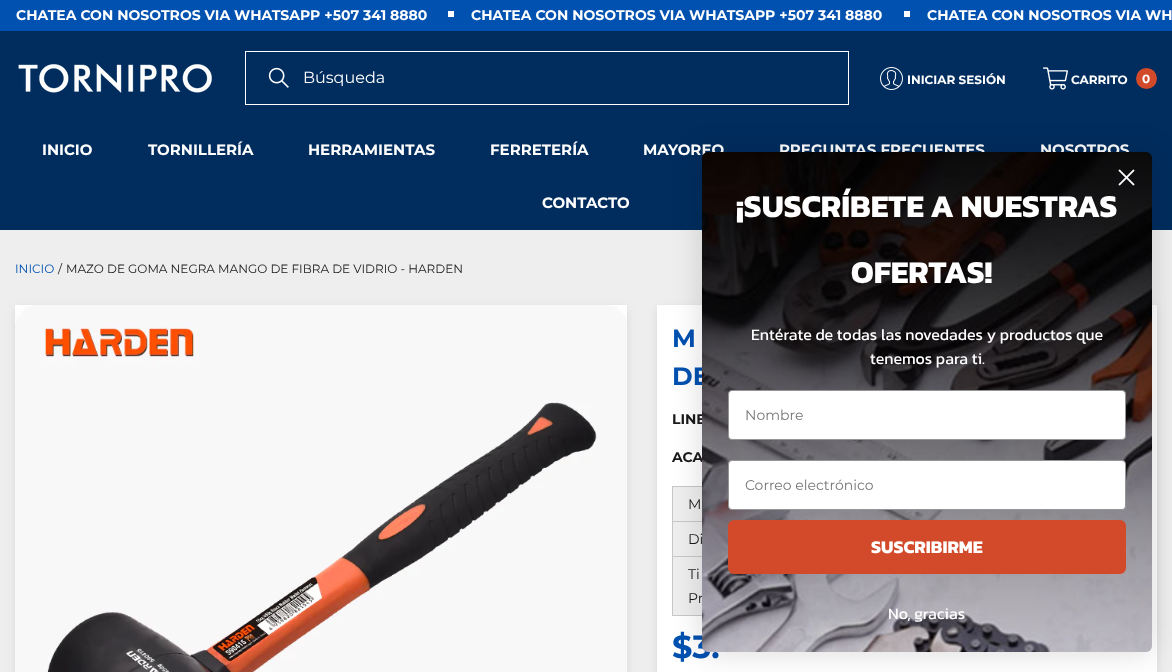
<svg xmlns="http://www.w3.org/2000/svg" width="1172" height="672">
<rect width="100%" height="100%" fill="#eee"/>
<rect width="1172" height="31" fill="#0051b0"/>
<text x="16" y="20" style="font-family:Montserrat;font-size:14px;font-weight:bold;fill:#fff">CHATEA CON NOSOTROS VIA WHATSAPP +507 341 8880</text>
<rect x="448" y="11" width="6" height="6" fill="#fff"/>
<text x="471" y="20" style="font-family:Montserrat;font-size:14px;font-weight:bold;fill:#fff">CHATEA CON NOSOTROS VIA WHATSAPP +507 341 8880</text>
<rect x="904" y="11" width="6" height="6" fill="#fff"/>
<text x="927" y="20" style="font-family:Montserrat;font-size:14px;font-weight:bold;fill:#fff">CHATEA CON NOSOTROS VIA WH</text>
<rect y="31" width="1172" height="199" fill="#002d5e"/>
<image x="18" y="63" width="194" height="30" href="media/1.png"/>
<rect x="245.5" y="51.5" width="603" height="53" fill="none" stroke="#fff"/>
<image x="268" y="67" width="21" height="21" href="media/2.png"/>
<text x="303" y="83" style="font-family:Montserrat;font-size:16px;font-weight:100;fill:#fff">Búsqueda</text>
<image x="880" y="67" width="23" height="23" href="media/3.png"/>
<text x="907" y="84" style="font-family:Montserrat;font-size:12px;font-weight:bold;fill:#fff">INICIAR SESIÓN</text>
<image x="1043" y="67" width="25" height="23" href="media/4.png"/>
<text x="1071" y="84" style="font-family:Montserrat;font-size:12px;font-weight:bold;fill:#fff">CARRITO</text>
<circle cx="1146.5" cy="78.5" r="10.5" fill="#d34a2a"/>
<text x="1142" y="83" style="font-family:Montserrat;font-size:12px;font-weight:bold;fill:#fff">0</text>
<text x="42" y="155" style="font-family:Montserrat;font-size:15px;font-weight:bold;fill:#fff">INICIO</text>
<text x="148" y="155" style="font-family:Montserrat;font-size:15px;font-weight:bold;fill:#fff">TORNILLERÍA</text>
<text x="308" y="155" style="font-family:Montserrat;font-size:15px;font-weight:bold;fill:#fff">HERRAMIENTAS</text>
<text x="490" y="155" style="font-family:Montserrat;font-size:15px;font-weight:bold;fill:#fff">FERRETERÍA</text>
<text x="643" y="155" style="font-family:Montserrat;font-size:15px;font-weight:bold;fill:#fff">MAYOREO</text>
<text x="779" y="155" style="font-family:Montserrat;font-size:15px;font-weight:bold;fill:#fff">PREGUNTAS FRECUENTES</text>
<text x="1040" y="155" style="font-family:Montserrat;font-size:15px;font-weight:bold;fill:#fff">NOSOTROS</text>
<text x="542" y="208" style="font-family:Montserrat;font-size:15px;font-weight:bold;fill:#fff">CONTACTO</text>
<text x="15" y="273" style="font-family:Montserrat;font-size:12px;font-weight:100;fill:#0051b0">INICIO</text>
<text x="58" y="273" style="font-family:Montserrat;font-size:12px;font-weight:100;fill:#1a1a1a">/</text>
<text x="66" y="273" style="font-family:Montserrat;font-size:12px;font-weight:100;fill:#1a1a1a">MAZO DE GOMA NEGRA MANGO DE FIBRA DE VIDRIO - HARDEN</text>
<rect x="15" y="308" width="612" height="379" fill="#3635351a" filter="blur(5px)"/>
<image x="15" y="305" width="612" height="367" href="media/5.png"/>
<rect x="657" y="308" width="500" height="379" fill="#3635351a" filter="blur(5px)"/>
<rect x="657" y="305" width="500" height="367" fill="#fff"/>
<text x="672" y="347" style="font-family:Montserrat;font-size:25px;font-weight:bold;fill:#0051b0">M</text>
<text x="672" y="385" style="font-family:Montserrat;font-size:25px;font-weight:bold;fill:#0051b0">DE</text>
<text x="672" y="424" style="font-family:Montserrat;font-size:14px;font-weight:bold;fill:#1a1a1a">LINE</text>
<text x="672" y="462" style="font-family:Montserrat;font-size:14px;font-weight:bold;fill:#1a1a1a">ACA</text>
<rect x="672.5" y="486.5" width="469" height="129" fill="none" stroke="#c7c7c7"/>
<rect x="673" y="521" width="29" height="1" fill="#c7c7c7"/>
<rect x="673" y="487" width="29" height="34" fill="#eee"/>
<text x="688" y="509" style="font-family:Montserrat;font-size:14px;font-weight:100;fill:#1a1a1a">M</text>
<rect x="673" y="556" width="29" height="1" fill="#c7c7c7"/>
<rect x="673" y="522" width="29" height="34" fill="#eee"/>
<text x="688" y="544" style="font-family:Montserrat;font-size:14px;font-weight:100;fill:#1a1a1a">Di</text>
<rect x="673" y="557" width="29" height="58" fill="#eee"/>
<text x="688" y="579" style="font-family:Montserrat;font-size:14px;font-weight:100;fill:#1a1a1a">Ti</text>
<text x="688" y="603" style="font-family:Montserrat;font-size:14px;font-weight:100;fill:#1a1a1a">Pr</text>
<text x="672" y="658" style="font-family:Montserrat;font-size:32px;font-weight:bold;fill:#0051b0">$3.</text>
<rect x="702" y="152" width="450" height="500" rx="6" fill="#00000026" filter="blur(15px)"/>
<image x="702" y="152" width="450" height="500" href="media/7.png"/>
<image x="1118" y="169" width="17" height="17" href="media/6.png"/>
<text x="736" y="217" style="font-family:Kanit;font-size:32px;font-weight:bold;fill:#fff">¡SUSCRÍBETE A NUESTRAS</text>
<text x="851" y="283" style="font-family:Kanit;font-size:32px;font-weight:bold;fill:#fff">OFERTAS!</text>
<text x="751" y="340" style="font-family:Kanit;font-size:16px;fill:#fff">Entérate de todas las novedades y productos que</text>
<text x="870" y="364" style="font-family:Kanit;font-size:16px;fill:#fff">tenemos para ti.</text>
<rect x="728.5" y="390.5" width="397" height="49" rx="3.5" fill="#fff" stroke="#949596"/>
<text x="745" y="420" style="font-family:Montserrat;font-size:14px;font-weight:100;fill:#767676">Nombre</text>
<rect x="728.5" y="460.5" width="397" height="49" rx="3.5" fill="#fff" stroke="#949596"/>
<text x="745" y="490" style="font-family:Montserrat;font-size:14px;font-weight:100;fill:#767676">Correo electrónico</text>
<rect x="728" y="520" width="398" height="54" rx="6" fill="#d34a2a"/>
<text x="871" y="553" style="font-family:Kanit;font-size:18px;font-weight:bold;fill:#fff">SUSCRIBIRME</text>
<text x="888" y="619" style="font-family:Kanit;font-size:16px;fill:#fff">No, gracias</text>
</svg>
